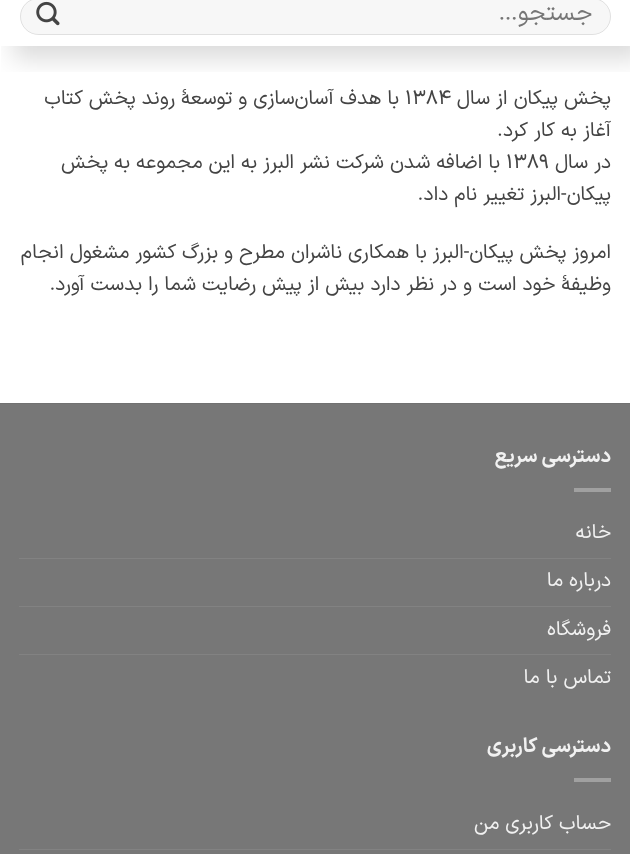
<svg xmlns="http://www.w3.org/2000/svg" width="630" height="854">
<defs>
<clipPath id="clip1"><rect x="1" y="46" width="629" height="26"/></clipPath>
</defs>
<rect width="100%" height="100%" fill="#fff"/>
<g clip-path="url(#clip1)">
<rect x="13" y="-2" width="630" height="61" fill="#00000024" filter="blur(12.5px)"/>
</g>
<rect x="20" y="-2" width="591" height="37" rx="18.5" fill="#f7f7f7"/>
<rect x="20.5" y="-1.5" width="590" height="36" rx="18" fill="none" stroke="#00000017"/>
<text x="592" y="20" style="font-family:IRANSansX;font-size:24px;direction:rtl;fill:#757575">جستجو…</text>
<image x="36" y="1" width="24" height="25" href="media/1.png"/>
<text x="611" y="104" style="font-family:IRANSansX;font-size:20px;direction:rtl;fill:#444">پخش پیکان از سال</text>
<text x="405" y="104" style="font-family:IRANSansX;font-size:20px;fill:#444">۱۳۸۴</text>
<text x="399" y="104" style="font-family:IRANSansX;font-size:20px;direction:rtl;fill:#444">با هدف آسان‌سازی و توسعۀ روند پخش کتاب</text>
<text x="611" y="136" style="font-family:IRANSansX;font-size:20px;direction:rtl;fill:#444">آغاز به کار کرد.</text>
<text x="611" y="168" style="font-family:IRANSansX;font-size:20px;direction:rtl;fill:#444">در سال</text>
<text x="506" y="168" style="font-family:IRANSansX;font-size:20px;fill:#444">۱۳۸۹</text>
<text x="500" y="168" style="font-family:IRANSansX;font-size:20px;direction:rtl;fill:#444">با اضافه شدن شرکت نشر البرز به این مجموعه به پخش</text>
<text x="611" y="200" style="font-family:IRANSansX;font-size:20px;direction:rtl;fill:#444">پیکان-البرز تغییر نام داد.</text>
<text x="611" y="258" style="font-family:IRANSansX;font-size:20px;direction:rtl;fill:#444">امروز پخش پیکان-البرز با همکاری ناشران مطرح و بزرگ کشور مشغول انجام</text>
<text x="611" y="290" style="font-family:IRANSansX;font-size:20px;direction:rtl;fill:#444">وظیفۀ خود است و در نظر دارد بیش از پیش رضایت شما را بدست آورد.</text>
<rect y="404" width="630" height="450" fill="#777"/>
<rect y="403" width="630" height="1" fill="#717171"/>
<text x="611" y="462" style="font-family:IRANSansX;font-size:20px;font-weight:bold;direction:rtl;fill:#f1f1f1">دسترسی سریع</text>
<rect x="574" y="488" width="37" height="4" fill="#a0a0a0"/>
<text x="611" y="538" style="font-family:IRANSansX;font-size:20px;direction:rtl;fill:#f1f1f1">خانه</text>
<rect x="19" y="558" width="592" height="1" fill="#828282"/>
<text x="611" y="586" style="font-family:IRANSansX;font-size:20px;direction:rtl;fill:#f1f1f1">درباره ما</text>
<rect x="19" y="606" width="592" height="1" fill="#828282"/>
<text x="611" y="635" style="font-family:IRANSansX;font-size:20px;direction:rtl;fill:#f1f1f1">فروشگاه</text>
<rect x="19" y="654" width="592" height="1" fill="#828282"/>
<text x="611" y="683" style="font-family:IRANSansX;font-size:20px;direction:rtl;fill:#f1f1f1">تماس با ما</text>
<text x="611" y="752" style="font-family:IRANSansX;font-size:20px;font-weight:bold;direction:rtl;fill:#f1f1f1">دسترسی کاربری</text>
<rect x="574" y="778" width="37" height="4" fill="#a0a0a0"/>
<text x="611" y="829" style="font-family:IRANSansX;font-size:20px;direction:rtl;fill:#f1f1f1">حساب کاربری من</text>
<rect x="19" y="849" width="592" height="1" fill="#828282"/>
</svg>
